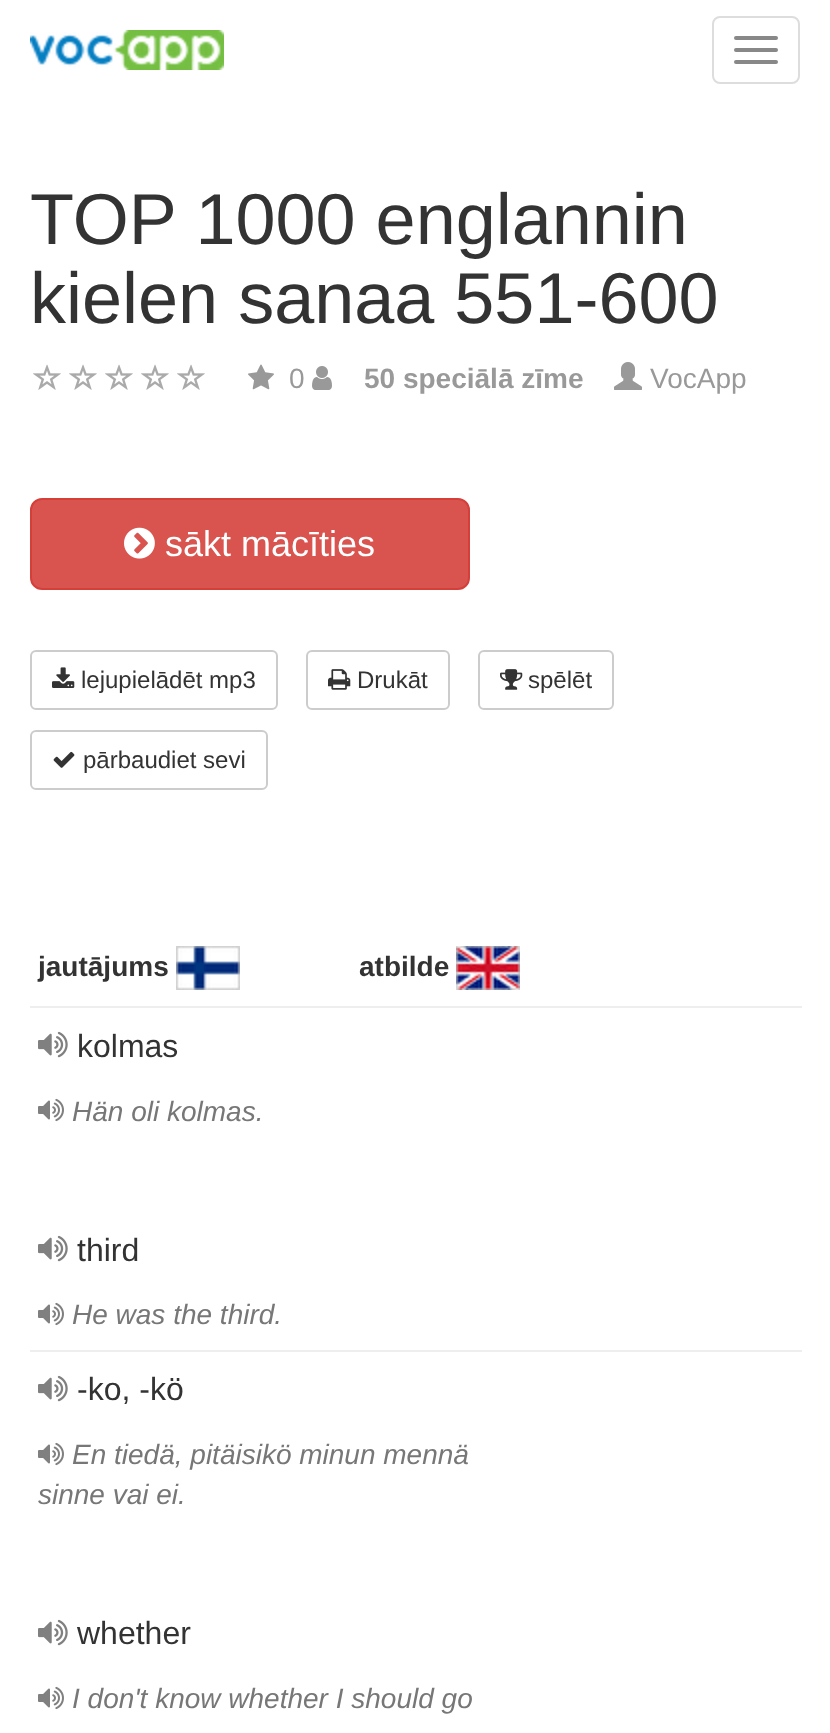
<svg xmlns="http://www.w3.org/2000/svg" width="830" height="1733">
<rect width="100%" height="100%" fill="#fff"/>
<image x="30" y="30" width="194" height="40" href="media/1.png"/>
<rect x="713" y="17" width="86" height="66" rx="7" fill="none" stroke="#ddd" stroke-width="2"/>
<rect x="734" y="36" width="44" height="4" rx="2" fill="#888"/>
<rect x="734" y="48" width="44" height="4" rx="2" fill="#888"/>
<rect x="734" y="60" width="44" height="4" rx="2" fill="#888"/>
<text x="30" y="244" style="font-family:Liberation Sans;font-size:72px;fill:#333">TOP 1000 englannin</text>
<text x="30" y="323" style="font-family:Liberation Sans;font-size:72px;fill:#333">kielen sanaa 551-600</text>
<image x="33" y="364" width="28" height="26" href="media/2.png"/>
<image x="69" y="364" width="28" height="26" href="media/2.png"/>
<image x="105" y="364" width="28" height="26" href="media/2.png"/>
<image x="141" y="364" width="28" height="26" href="media/2.png"/>
<image x="177" y="364" width="28" height="26" href="media/2.png"/>
<image x="248" y="364" width="26" height="26" href="media/3.png"/>
<text x="289" y="388" style="font-family:Liberation Sans;font-size:28px;fill:#999">0</text>
<image x="312" y="366" width="20" height="24" href="media/4.png"/>
<text x="364" y="388" style="font-family:Liberation Sans;font-size:28px;font-weight:bold;fill:#999">50 speciālā zīme</text>
<image x="614" y="362" width="28" height="28" href="media/5.png"/>
<text x="650" y="388" style="font-family:Liberation Sans;font-size:28px;fill:#999">VocApp</text>
<rect x="31" y="499" width="438" height="90" rx="11" fill="#d9534f" stroke="#d43f3a" stroke-width="2"/>
<image x="124" y="527" width="31" height="32" href="media/6.png"/>
<text x="165" y="556" style="font-family:Liberation Sans;font-size:36px;fill:#fff">sākt mācīties</text>
<rect x="31" y="651" width="246" height="58" rx="5" fill="none" stroke="#ccc" stroke-width="2"/>
<image x="52" y="667" width="23" height="21" href="media/7.png"/>
<text x="81" y="688" style="font-family:Liberation Sans;font-size:24px;fill:#333">lejupielādēt mp3</text>
<rect x="307" y="651" width="142" height="58" rx="5" fill="none" stroke="#ccc" stroke-width="2"/>
<image x="328" y="669" width="23" height="21" href="media/8.png"/>
<text x="357" y="688" style="font-family:Liberation Sans;font-size:24px;fill:#333">Drukāt</text>
<rect x="479" y="651" width="134" height="58" rx="5" fill="none" stroke="#ccc" stroke-width="2"/>
<image x="500" y="669" width="23" height="21" href="media/9.png"/>
<text x="528" y="688" style="font-family:Liberation Sans;font-size:24px;fill:#333">spēlēt</text>
<rect x="31" y="731" width="236" height="58" rx="5" fill="none" stroke="#ccc" stroke-width="2"/>
<image x="53" y="751" width="22" height="17" href="media/10.png"/>
<text x="83" y="768" style="font-family:Liberation Sans;font-size:24px;fill:#333">pārbaudiet sevi</text>
<rect x="30" y="1006" width="772" height="2" fill="#eee"/>
<text x="38" y="976" style="font-family:Liberation Sans;font-size:28px;font-weight:bold;fill:#333">jautājums</text>
<image x="176" y="946" width="64" height="44" href="media/11.png"/>
<text x="359" y="976" style="font-family:Liberation Sans;font-size:28px;font-weight:bold;fill:#333">atbilde</text>
<image x="456" y="946" width="64" height="44" href="media/12.png"/>
<rect x="30" y="1350" width="772" height="2" fill="#eee"/>
<image x="38" y="1031" width="30" height="27" href="media/13.png"/>
<text x="77" y="1057" style="font-family:Liberation Sans;font-size:32px;fill:#333">kolmas</text>
<image x="38" y="1098" width="26" height="24" href="media/14.png"/>
<text x="72" y="1121" style="font-family:Liberation Sans;font-size:28px;font-style:italic;fill:#777">Hän oli kolmas.</text>
<image x="38" y="1235" width="30" height="27" href="media/13.png"/>
<text x="77" y="1261" style="font-family:Liberation Sans;font-size:32px;fill:#333">third</text>
<image x="38" y="1302" width="26" height="24" href="media/14.png"/>
<text x="72" y="1324" style="font-family:Liberation Sans;font-size:28px;font-style:italic;fill:#777">He was the third.</text>
<image x="38" y="1375" width="30" height="27" href="media/13.png"/>
<text x="77" y="1400" style="font-family:Liberation Sans;font-size:32px;fill:#333">-ko, -kö</text>
<image x="38" y="1442" width="26" height="24" href="media/14.png"/>
<text x="72" y="1464" style="font-family:Liberation Sans;font-size:28px;font-style:italic;fill:#777">En tiedä, pitäisikö minun mennä</text>
<text x="38" y="1504" style="font-family:Liberation Sans;font-size:28px;font-style:italic;fill:#777">sinne vai ei.</text>
<image x="38" y="1619" width="30" height="27" href="media/13.png"/>
<text x="77" y="1644" style="font-family:Liberation Sans;font-size:32px;fill:#333">whether</text>
<image x="38" y="1686" width="26" height="24" href="media/14.png"/>
<text x="72" y="1708" style="font-family:Liberation Sans;font-size:28px;font-style:italic;fill:#777">I don't know whether I should go</text>
</svg>
